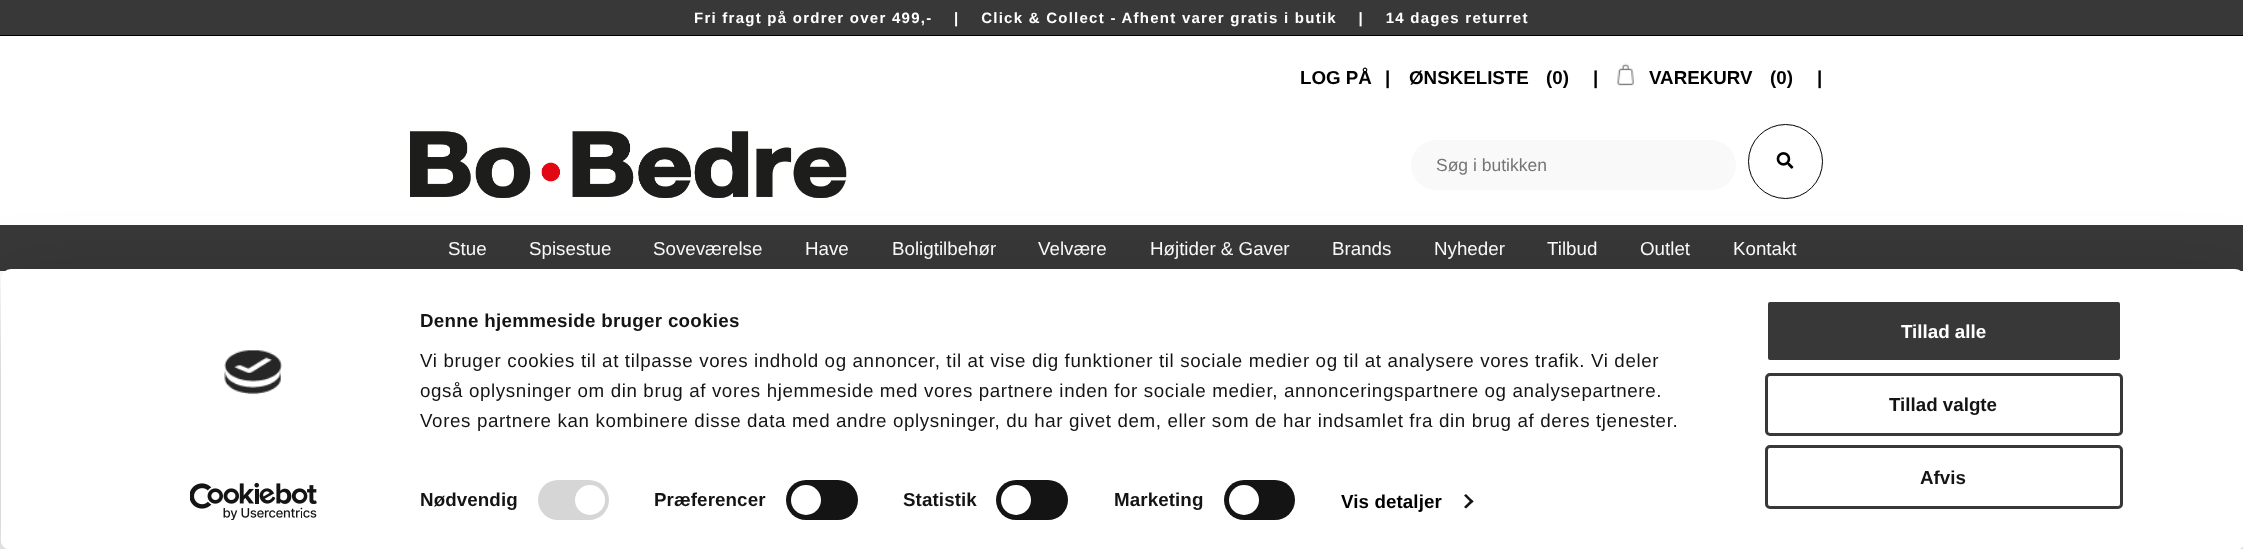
<svg xmlns="http://www.w3.org/2000/svg" width="2243" height="549">
<defs>
<clipPath id="clip1"><path d="M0 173h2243v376h-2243zm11 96h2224c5.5 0 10 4.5 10 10v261c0 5.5-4.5 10-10 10h-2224c-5.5 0-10-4.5-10-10v-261c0-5.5 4.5-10 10-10z" clip-rule="evenodd"/></clipPath>
</defs>
<rect width="100%" height="100%" fill="#fff"/>
<rect width="2243" height="35" fill="#383838"/>
<rect y="35" width="2243" height="1" fill="#000"/>
<text x="694" y="23" style="font-family:Liberation Sans;font-size:15px;font-weight:bold;letter-spacing:1.25px;fill:#fff" xml:space="preserve">Fri fragt på ordrer over 499,-    |    Click &amp; Collect - Afhent varer gratis i butik    |    14 dages returret</text>
<text x="1300" y="84" style="font-family:Liberation Sans;font-size:18.75px;font-weight:bold;fill:#000">LOG PÅ</text>
<text x="1385" y="84" style="font-family:Liberation Sans;font-size:18.75px;font-weight:bold;fill:#000">|</text>
<text x="1409" y="84" style="font-family:Liberation Sans;font-size:18.75px;font-weight:bold;fill:#000">ØNSKELISTE</text>
<text x="1546" y="84" style="font-family:Liberation Sans;font-size:18.75px;font-weight:bold;fill:#000">(0)</text>
<text x="1593" y="84" style="font-family:Liberation Sans;font-size:18.75px;font-weight:bold;fill:#000">|</text>
<image x="1617" y="63" width="17" height="23" href="media/1.png"/>
<text x="1649" y="84" style="font-family:Liberation Sans;font-size:18.75px;font-weight:bold;fill:#000">VAREKURV</text>
<text x="1770" y="84" style="font-family:Liberation Sans;font-size:18.75px;font-weight:bold;fill:#000">(0)</text>
<text x="1817" y="84" style="font-family:Liberation Sans;font-size:18.75px;font-weight:bold;fill:#000">|</text>
<image x="410" y="131" width="437" height="67" href="media/2.png"/>
<rect x="1411" y="140" width="325" height="50" rx="25" fill="#f9f9f9"/>
<text x="1436" y="171" style="font-family:Liberation Sans;font-size:17.5px;fill:#757575">Søg i butikken</text>
<circle cx="1785.5" cy="161.5" r="37" fill="none" stroke="#000"/>
<image x="1776" y="152" width="18" height="17" href="media/3.png"/>
<rect y="225" width="2243" height="46" fill="#383838"/>
<text x="448" y="255" style="font-family:Liberation Sans;font-size:18.75px;fill:#fff">Stue</text>
<text x="529" y="255" style="font-family:Liberation Sans;font-size:18.75px;fill:#fff">Spisestue</text>
<text x="653" y="255" style="font-family:Liberation Sans;font-size:18.75px;fill:#fff">Soveværelse</text>
<text x="805" y="255" style="font-family:Liberation Sans;font-size:18.75px;fill:#fff">Have</text>
<text x="892" y="255" style="font-family:Liberation Sans;font-size:18.75px;fill:#fff">Boligtilbehør</text>
<text x="1038" y="255" style="font-family:Liberation Sans;font-size:18.75px;fill:#fff">Velvære</text>
<text x="1150" y="255" style="font-family:Liberation Sans;font-size:18.75px;fill:#fff">Højtider &amp; Gaver</text>
<text x="1332" y="255" style="font-family:Liberation Sans;font-size:18.75px;fill:#fff">Brands</text>
<text x="1434" y="255" style="font-family:Liberation Sans;font-size:18.75px;fill:#fff">Nyheder</text>
<text x="1547" y="255" style="font-family:Liberation Sans;font-size:18.75px;fill:#fff">Tilbud</text>
<text x="1640" y="255" style="font-family:Liberation Sans;font-size:18.75px;fill:#fff">Outlet</text>
<text x="1733" y="255" style="font-family:Liberation Sans;font-size:18.75px;fill:#fff">Kontakt</text>
<g clip-path="url(#clip1)">
<rect x="1" y="306" width="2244" height="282" rx="10" fill="#0000004d" filter="blur(44px)"/>
</g>
<rect x="1" y="269" width="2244" height="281" rx="10" fill="#fff"/>
<image x="224" y="350" width="58" height="45" href="media/4.png"/>
<image x="190" y="483" width="127" height="37" href="media/5.png"/>
<text x="420" y="327" style="font-family:Liberation Sans;font-size:18.75px;font-weight:bold;letter-spacing:0.3px;fill:#141414">Denne hjemmeside bruger cookies</text>
<text x="420" y="367" style="font-family:Liberation Sans;font-size:18.75px;letter-spacing:0.62px;fill:#141414">Vi bruger cookies til at tilpasse vores indhold og annoncer, til at vise dig funktioner til sociale medier og til at analysere vores trafik. Vi deler</text>
<text x="420" y="397" style="font-family:Liberation Sans;font-size:18.75px;letter-spacing:0.62px;fill:#141414">også oplysninger om din brug af vores hjemmeside med vores partnere inden for sociale medier, annonceringspartnere og analysepartnere.</text>
<text x="420" y="427" style="font-family:Liberation Sans;font-size:18.75px;letter-spacing:0.62px;fill:#141414">Vores partnere kan kombinere disse data med andre oplysninger, du har givet dem, eller som de har indsamlet fra din brug af deres tjenester.</text>
<text x="420" y="506" style="font-family:Liberation Sans;font-size:18.75px;font-weight:bold;letter-spacing:0.1px;fill:#141414">Nødvendig</text>
<rect x="538" y="480" width="71" height="40" rx="20" fill="#d6d6d6"/>
<circle cx="590" cy="500" r="15" fill="#fff"/>
<text x="654" y="506" style="font-family:Liberation Sans;font-size:18.75px;font-weight:bold;letter-spacing:0.1px;fill:#141414">Præferencer</text>
<rect x="786" y="480" width="72" height="40" rx="20" fill="#141414"/>
<circle cx="806" cy="500" r="15" fill="#fff"/>
<text x="903" y="506" style="font-family:Liberation Sans;font-size:18.75px;font-weight:bold;letter-spacing:0.1px;fill:#141414">Statistik</text>
<rect x="996" y="480" width="72" height="40" rx="20" fill="#141414"/>
<circle cx="1016" cy="500" r="15" fill="#fff"/>
<text x="1114" y="506" style="font-family:Liberation Sans;font-size:18.75px;font-weight:bold;letter-spacing:0.1px;fill:#141414">Marketing</text>
<rect x="1224" y="480" width="71" height="40" rx="20" fill="#141414"/>
<circle cx="1244" cy="500" r="15" fill="#fff"/>
<text x="1341" y="508" style="font-family:Liberation Sans;font-size:18.75px;font-weight:bold;letter-spacing:0.1px;fill:#000">Vis detaljer</text>
<path d="M1466 494l7.5 7.5l-2 1.5l-7.5-7.5z" fill="#141414"/>
<path d="M1471.5 499.5l2 2l-7.5 7l-2-1.5z" fill="#141414"/>
<rect x="1766.5" y="300.5" width="355" height="61" rx="3.5" fill="#383838" stroke="#fff" stroke-width="3"/>
<text x="1901" y="338" style="font-family:Liberation Sans;font-size:18.75px;font-weight:bold;fill:#fff">Tillad alle</text>
<rect x="1766.5" y="374.5" width="355" height="60" rx="3.5" fill="none" stroke="#383838" stroke-width="3"/>
<text x="1889" y="411" style="font-family:Liberation Sans;font-size:18.75px;font-weight:bold;fill:#141414">Tillad valgte</text>
<rect x="1766.5" y="446.5" width="355" height="61" rx="3.5" fill="none" stroke="#383838" stroke-width="3"/>
<text x="1920" y="484" style="font-family:Liberation Sans;font-size:18.75px;font-weight:bold;fill:#141414">Afvis</text>
</svg>
